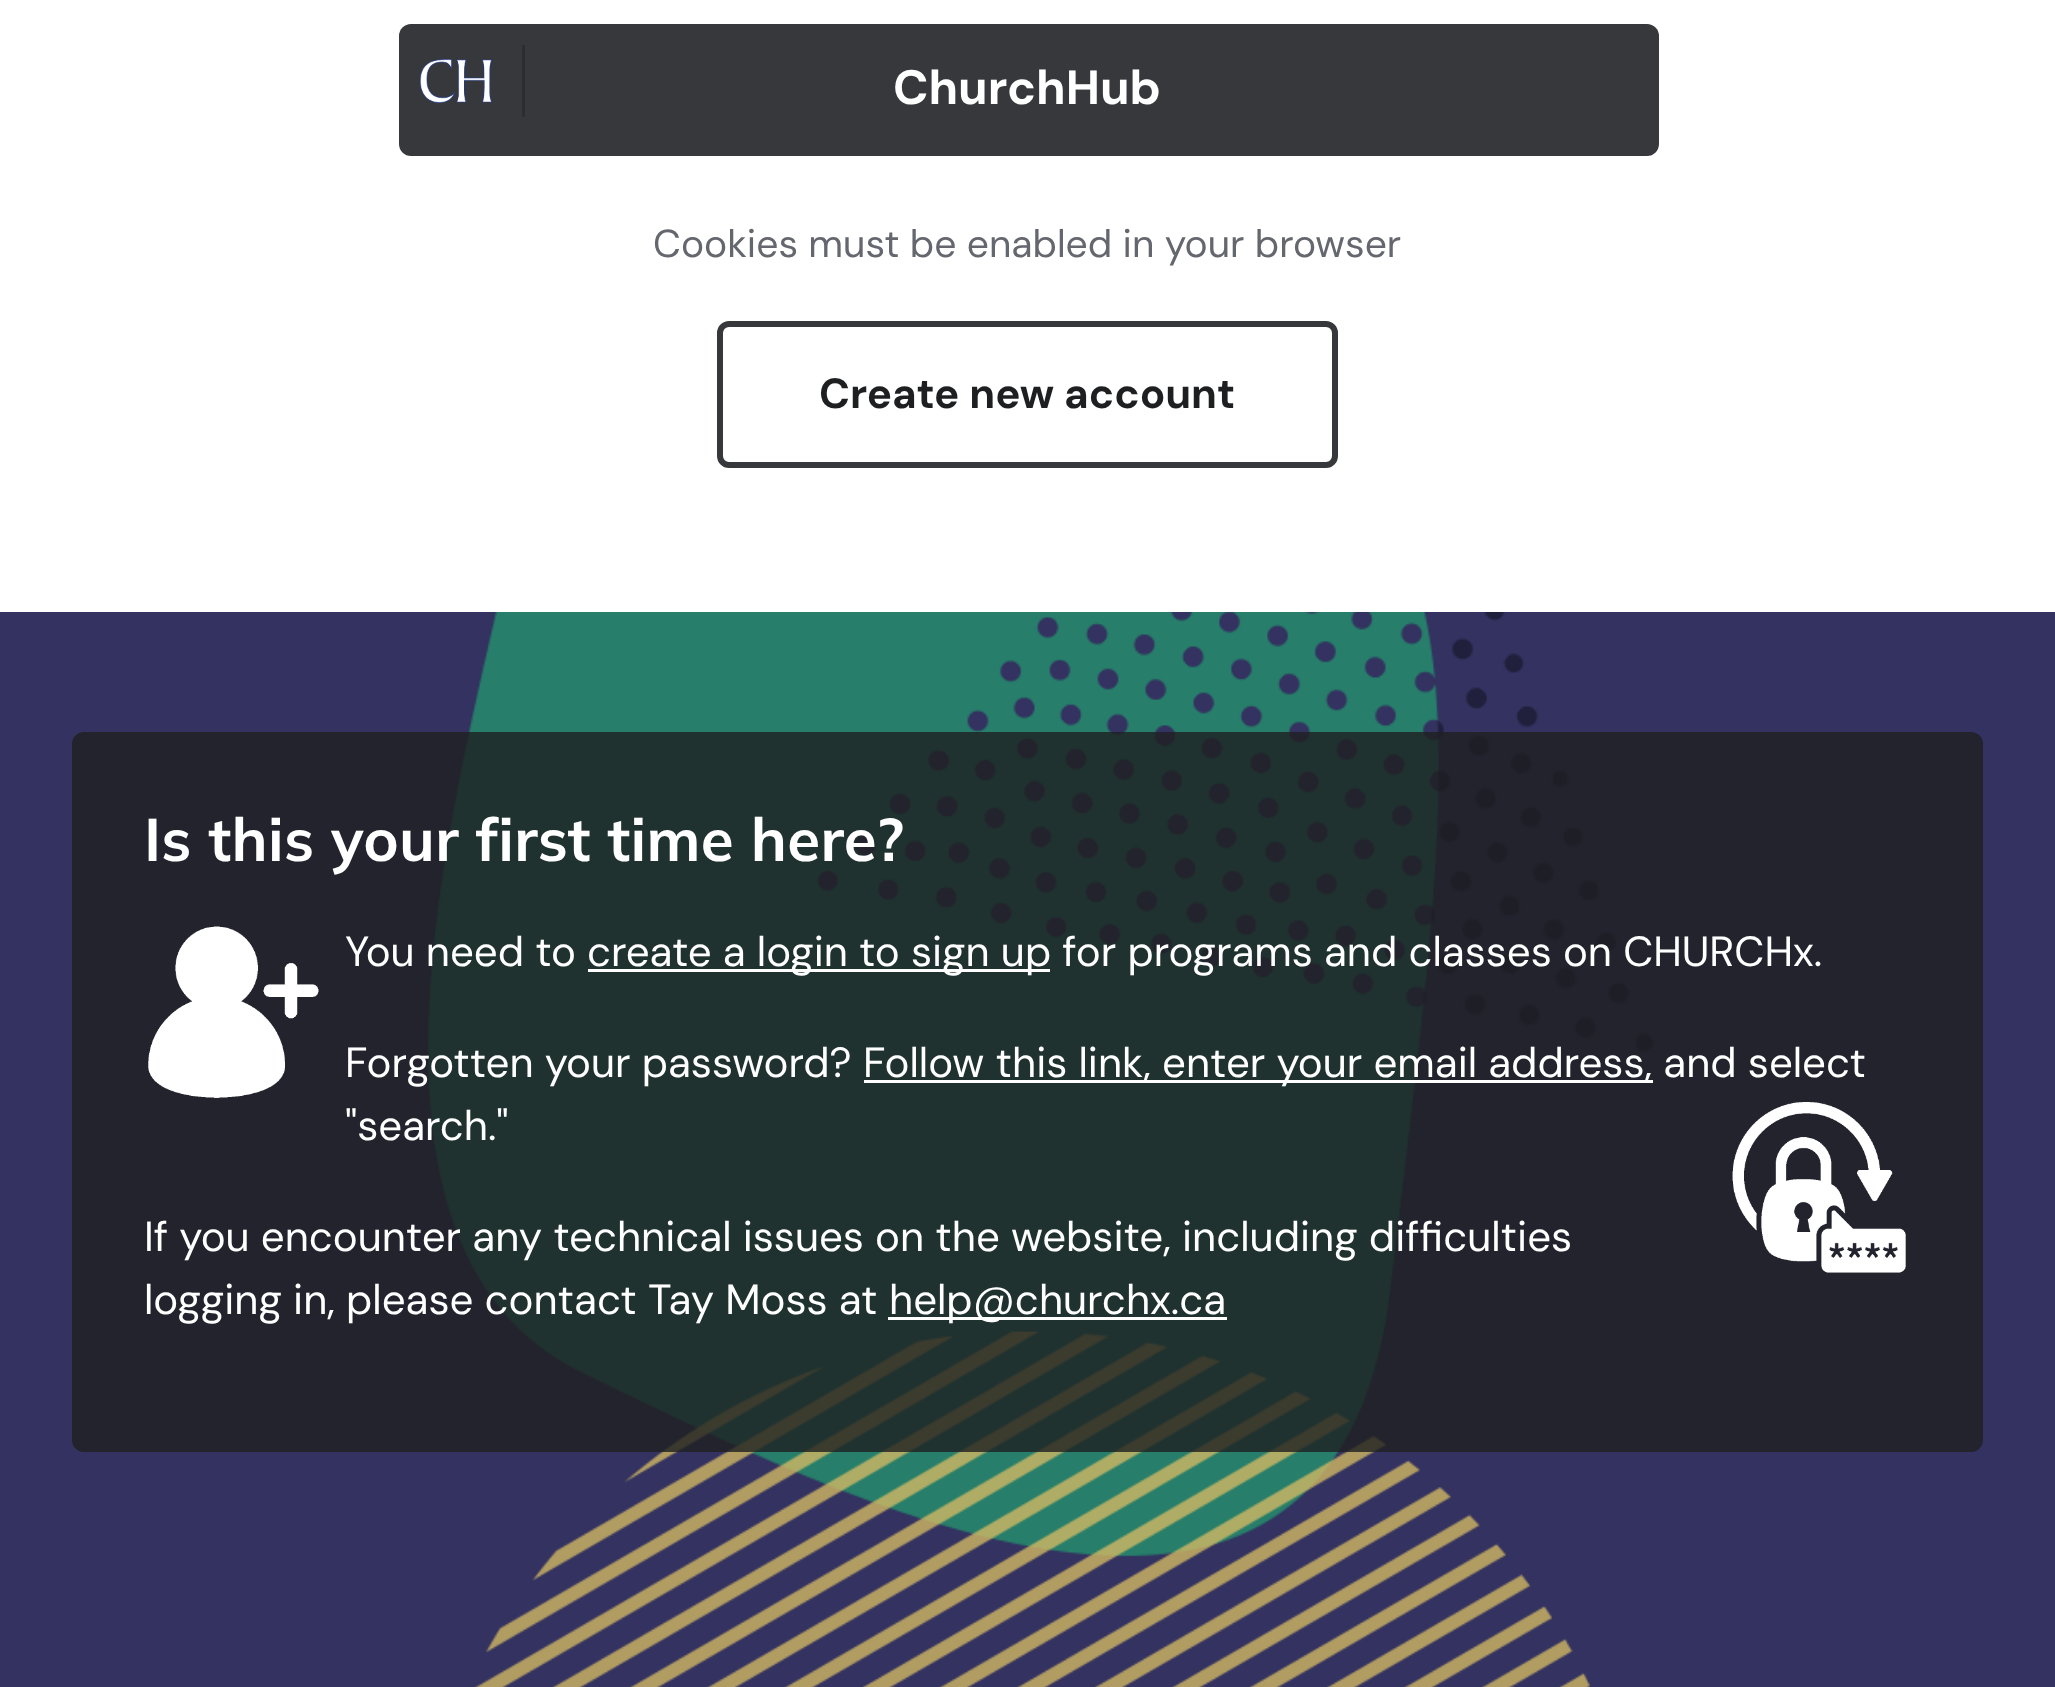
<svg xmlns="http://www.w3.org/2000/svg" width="2055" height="1687">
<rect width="100%" height="100%" fill="#fff"/>
<rect x="399" y="24" width="1260" height="132" rx="12" fill="#36383c"/>
<rect x="522" y="45" width="3" height="72" fill="#2b2d30"/>
<image x="420" y="59" width="72" height="44" href="media/1.png"/>
<text x="893" y="104" style="font-family:DM Sans;font-size:48px;font-weight:bold;fill:#fff">ChurchHub</text>
<text x="653" y="257" style="font-family:DM Sans;font-size:39px;fill:#65676e">Cookies must be enabled in your browser</text>
<rect x="720" y="324" width="615" height="141" rx="9" fill="none" stroke="#36383c" stroke-width="6"/>
<text x="819" y="408" style="font-family:DM Sans;font-size:42px;font-weight:bold;fill:#1e1f21">Create new account</text>
<image x="0" y="612" width="2055" height="1075" href="media/2.png"/>
<rect x="72" y="732" width="1911" height="720" rx="12" fill="#1e1f21cc"/>
<text x="144" y="861" style="font-family:Mulish;font-size:60px;font-weight:bold;letter-spacing:0.3px;fill:#fff">Is this your first time here?</text>
<image x="148" y="926" width="171" height="172" href="media/3.png"/>
<text x="345" y="966" style="font-family:DM Sans;font-size:42px;fill:#fff">You need to</text>
<rect x="588" y="969" width="462" height="3" fill="#fff"/>
<text x="587" y="966" style="font-family:DM Sans;font-size:42px;fill:#fff">create a login to sign up for programs and classes on CHURCHx.</text>
<text x="345" y="1077" style="font-family:DM Sans;font-size:42px;fill:#fff">Forgotten your password?</text>
<rect x="864" y="1080" width="789" height="3" fill="#fff"/>
<text x="863" y="1077" style="font-family:DM Sans;font-size:42px;fill:#fff">Follow this link, enter your email address, and select</text>
<text x="345" y="1140" style="font-family:DM Sans;font-size:42px;fill:#fff">"search."</text>
<image x="1732" y="1102" width="174" height="171" href="media/4.png"/>
<text x="144" y="1251" style="font-family:DM Sans;font-size:42px;fill:#fff">If you encounter any technical issues on the website, including difficulties</text>
<text x="144" y="1314" style="font-family:DM Sans;font-size:42px;fill:#fff">logging in, please contact Tay Moss at</text>
<rect x="888" y="1317" width="339" height="3" fill="#fff"/>
<text x="889" y="1314" style="font-family:DM Sans;font-size:42px;fill:#fff">help@churchx.ca</text>
</svg>
